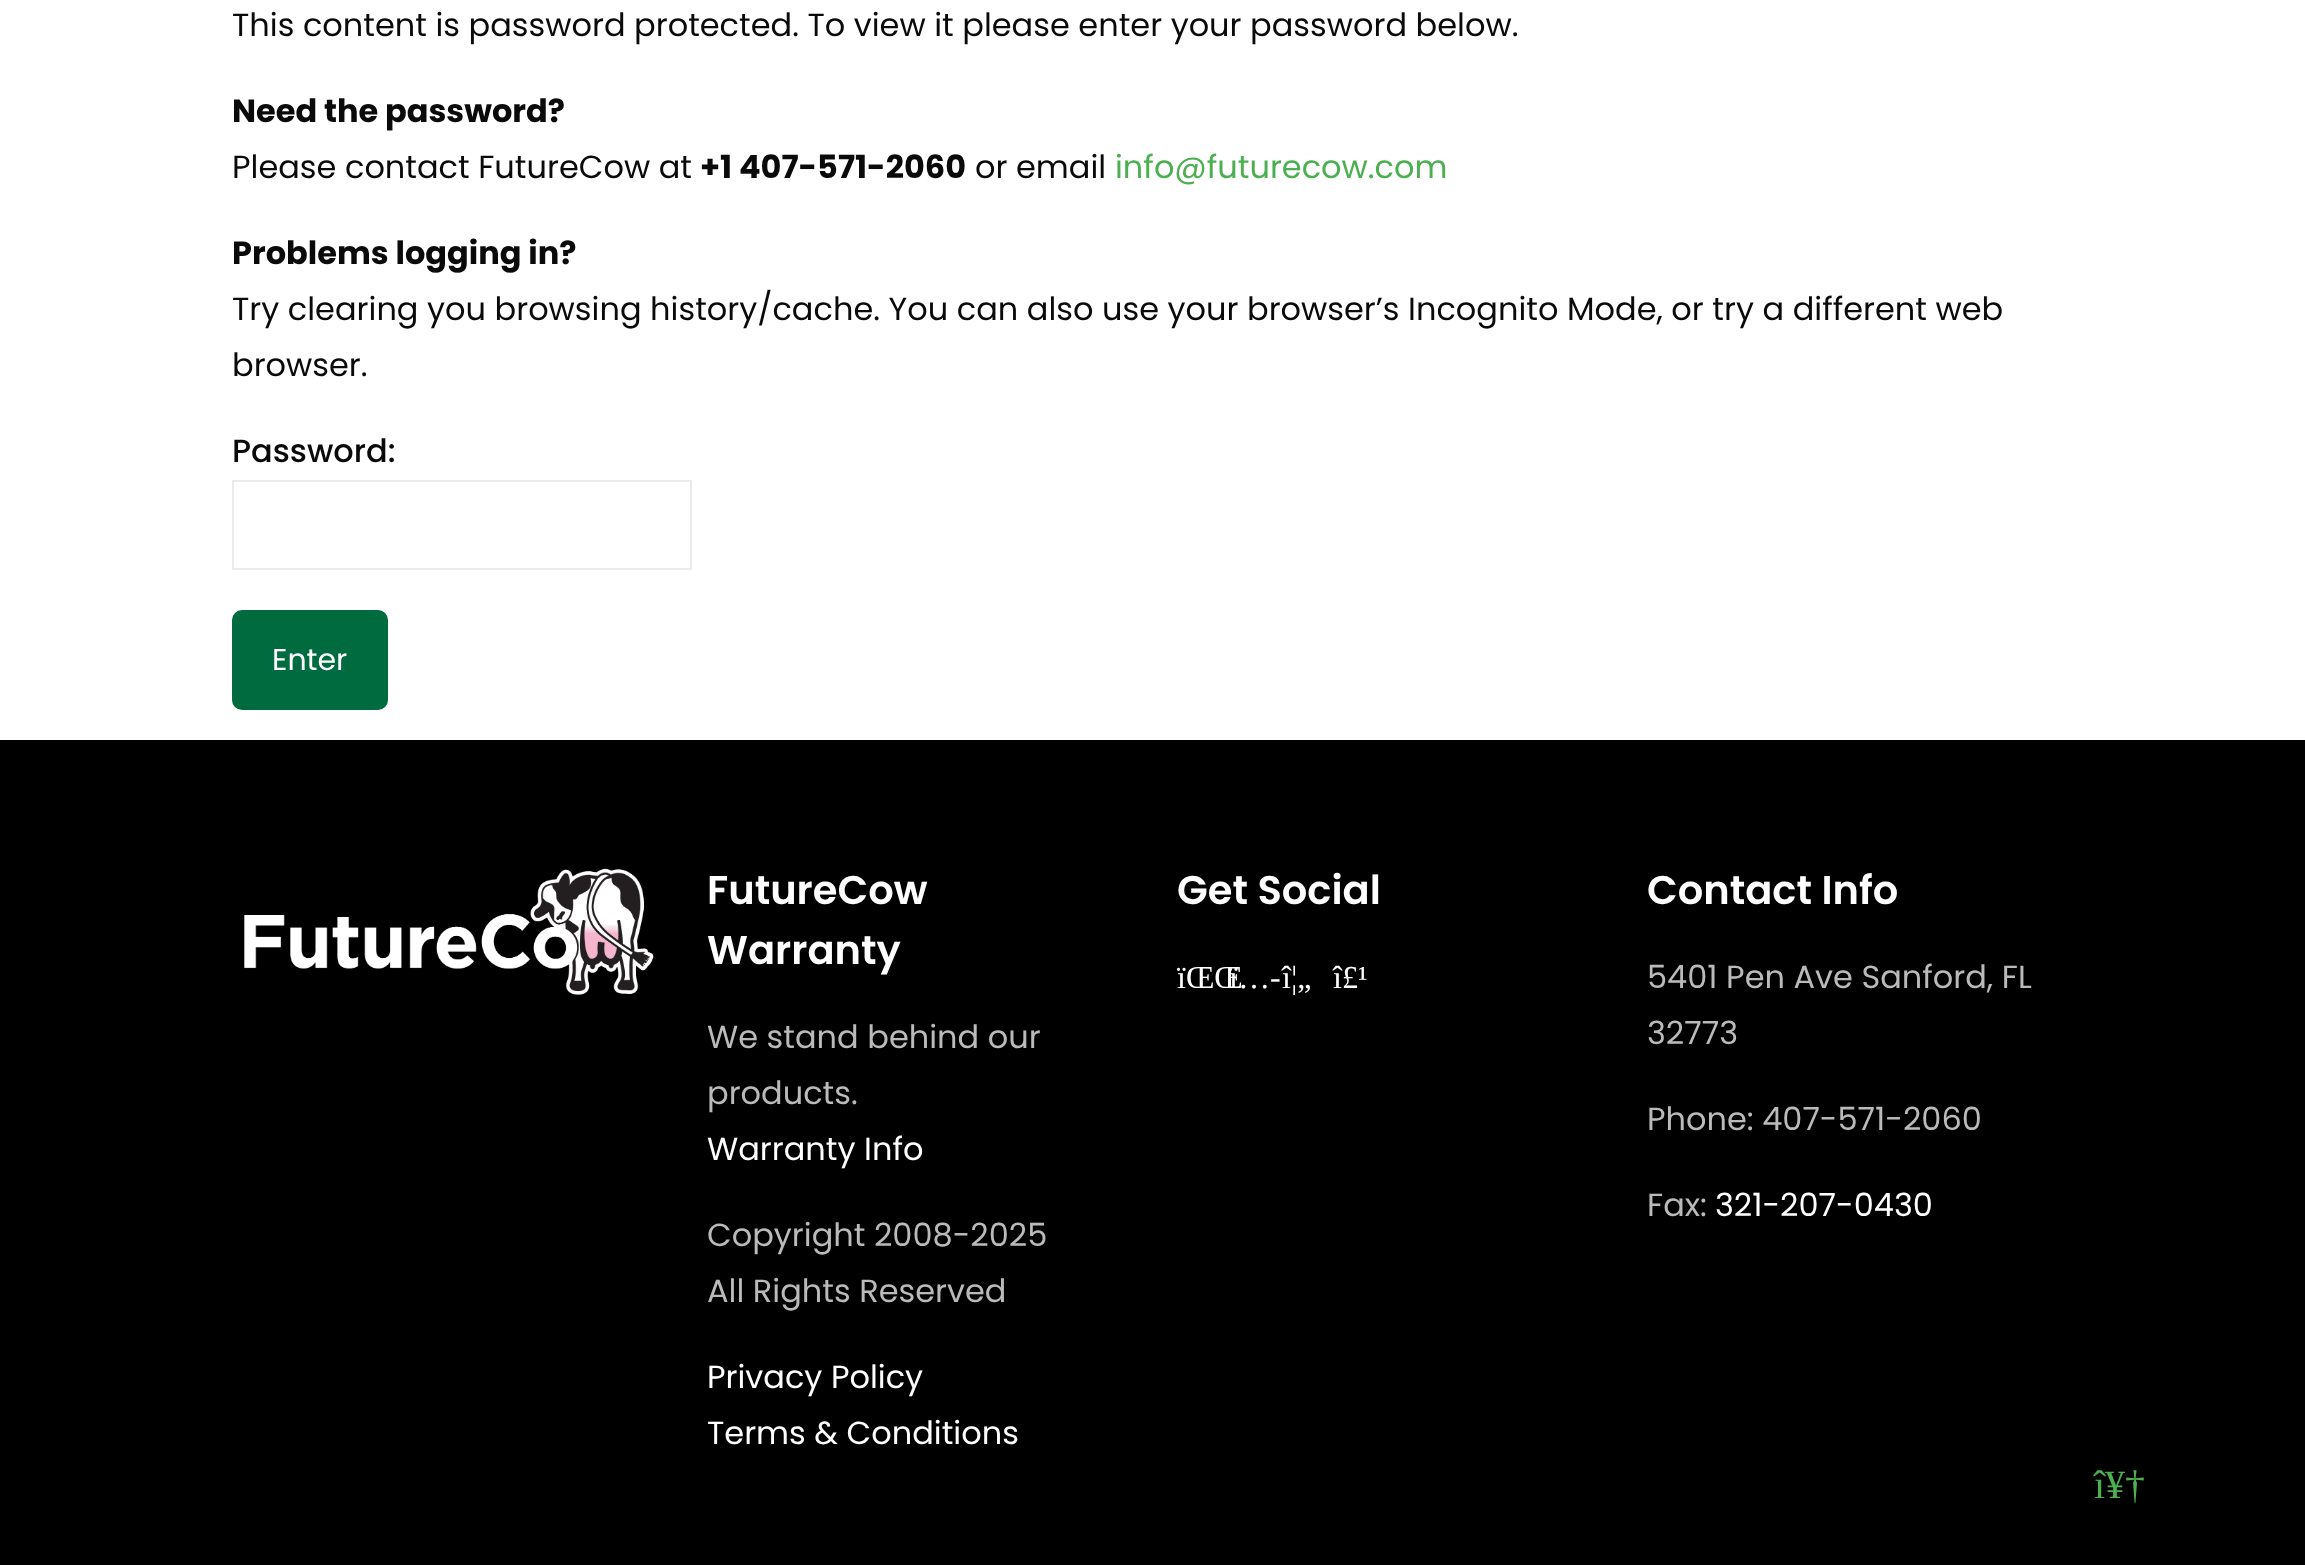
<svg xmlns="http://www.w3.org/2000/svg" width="2305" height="1565">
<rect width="100%" height="100%" fill="#fff"/>
<text x="232" y="36" style="font-family:Poppins;font-size:32px;fill:#0a0a0a">This content is password protected. To view it please enter your password below.</text>
<text x="232" y="122" style="font-family:Poppins;font-size:32px;font-weight:bold;fill:#0a0a0a">Need the password?</text>
<text x="232" y="178" style="font-family:Poppins;font-size:32px;fill:#0a0a0a">Please contact FutureCow at</text>
<text x="700" y="178" style="font-family:Poppins;font-size:32px;font-weight:bold;fill:#0a0a0a">+1 407-571-2060</text>
<text x="975" y="178" style="font-family:Poppins;font-size:32px;fill:#0a0a0a">or email</text>
<text x="1115" y="178" style="font-family:Poppins;font-size:32px;fill:#4caf50">info@futurecow.com</text>
<text x="232" y="264" style="font-family:Poppins;font-size:32px;font-weight:bold;fill:#0a0a0a">Problems logging in?</text>
<text x="232" y="320" style="font-family:Poppins;font-size:32px;fill:#0a0a0a">Try clearing you browsing history/cache. You can also use your browser’s Incognito Mode, or try a different web</text>
<text x="232" y="376" style="font-family:Poppins;font-size:32px;fill:#0a0a0a">browser.</text>
<text x="232" y="462" style="font-family:Poppins;font-size:32px;font-weight:500;fill:#0a0a0a">Password:</text>
<rect x="233" y="481" width="458" height="88" fill="none" stroke="#ebebeb" stroke-width="2"/>
<rect x="232" y="610" width="156" height="100" rx="10" fill="#006b3f"/>
<text x="272" y="670" style="font-family:Poppins;font-size:30px;fill:#fff">Enter</text>
<rect y="740" width="2305" height="825" fill="#000"/>
<image x="244" y="868" width="410" height="127" href="media/1.png"/>
<text x="707" y="904" style="font-family:Poppins;font-size:40px;font-weight:600;fill:#fff">FutureCow</text>
<text x="707" y="964" style="font-family:Poppins;font-size:40px;font-weight:600;fill:#fff">Warranty</text>
<text x="707" y="1048" style="font-family:Poppins;font-size:32px;fill:#bababa">We stand behind our</text>
<text x="707" y="1104" style="font-family:Poppins;font-size:32px;fill:#bababa">products.</text>
<text x="707" y="1160" style="font-family:Poppins;font-size:32px;fill:#fff">Warranty Info</text>
<text x="707" y="1246" style="font-family:Poppins;font-size:32px;fill:#bababa">Copyright 2008-2025</text>
<text x="707" y="1302" style="font-family:Poppins;font-size:32px;fill:#bababa">All Rights Reserved</text>
<text x="707" y="1388" style="font-family:Poppins;font-size:32px;fill:#fff">Privacy Policy</text>
<text x="707" y="1444" style="font-family:Poppins;font-size:32px;fill:#fff">Terms &amp; Conditions</text>
<text x="1177" y="904" style="font-family:Poppins;font-size:40px;font-weight:600;fill:#fff">Get Social</text>
<text x="1177" y="988" style="font-family:Liberation Serif;font-size:32px;fill:#fff">ïŒŒ</text>
<text x="1229" y="988" style="font-family:Liberation Serif;font-size:32px;fill:#fff">ï…-</text>
<text x="1282" y="988" style="font-family:Liberation Serif;font-size:32px;fill:#fff">î¦„</text>
<text x="1333" y="988" style="font-family:Liberation Serif;font-size:32px;fill:#fff">î£¹</text>
<text x="1647" y="904" style="font-family:Poppins;font-size:40px;font-weight:600;fill:#fff">Contact Info</text>
<text x="1647" y="988" style="font-family:Poppins;font-size:32px;fill:#bababa">5401 Pen Ave Sanford, FL</text>
<text x="1647" y="1044" style="font-family:Poppins;font-size:32px;fill:#bababa">32773</text>
<text x="1647" y="1130" style="font-family:Poppins;font-size:32px;fill:#bababa">Phone: 407-571-2060</text>
<text x="1647" y="1216" style="font-family:Poppins;font-size:32px;fill:#bababa">Fax:</text>
<text x="1715" y="1216" style="font-family:Poppins;font-size:32px;fill:#fff">321-207-0430</text>
<text x="2094" y="1498" style="font-family:Liberation Serif;font-size:40px;fill:#4caf50">î¥†</text>
</svg>
